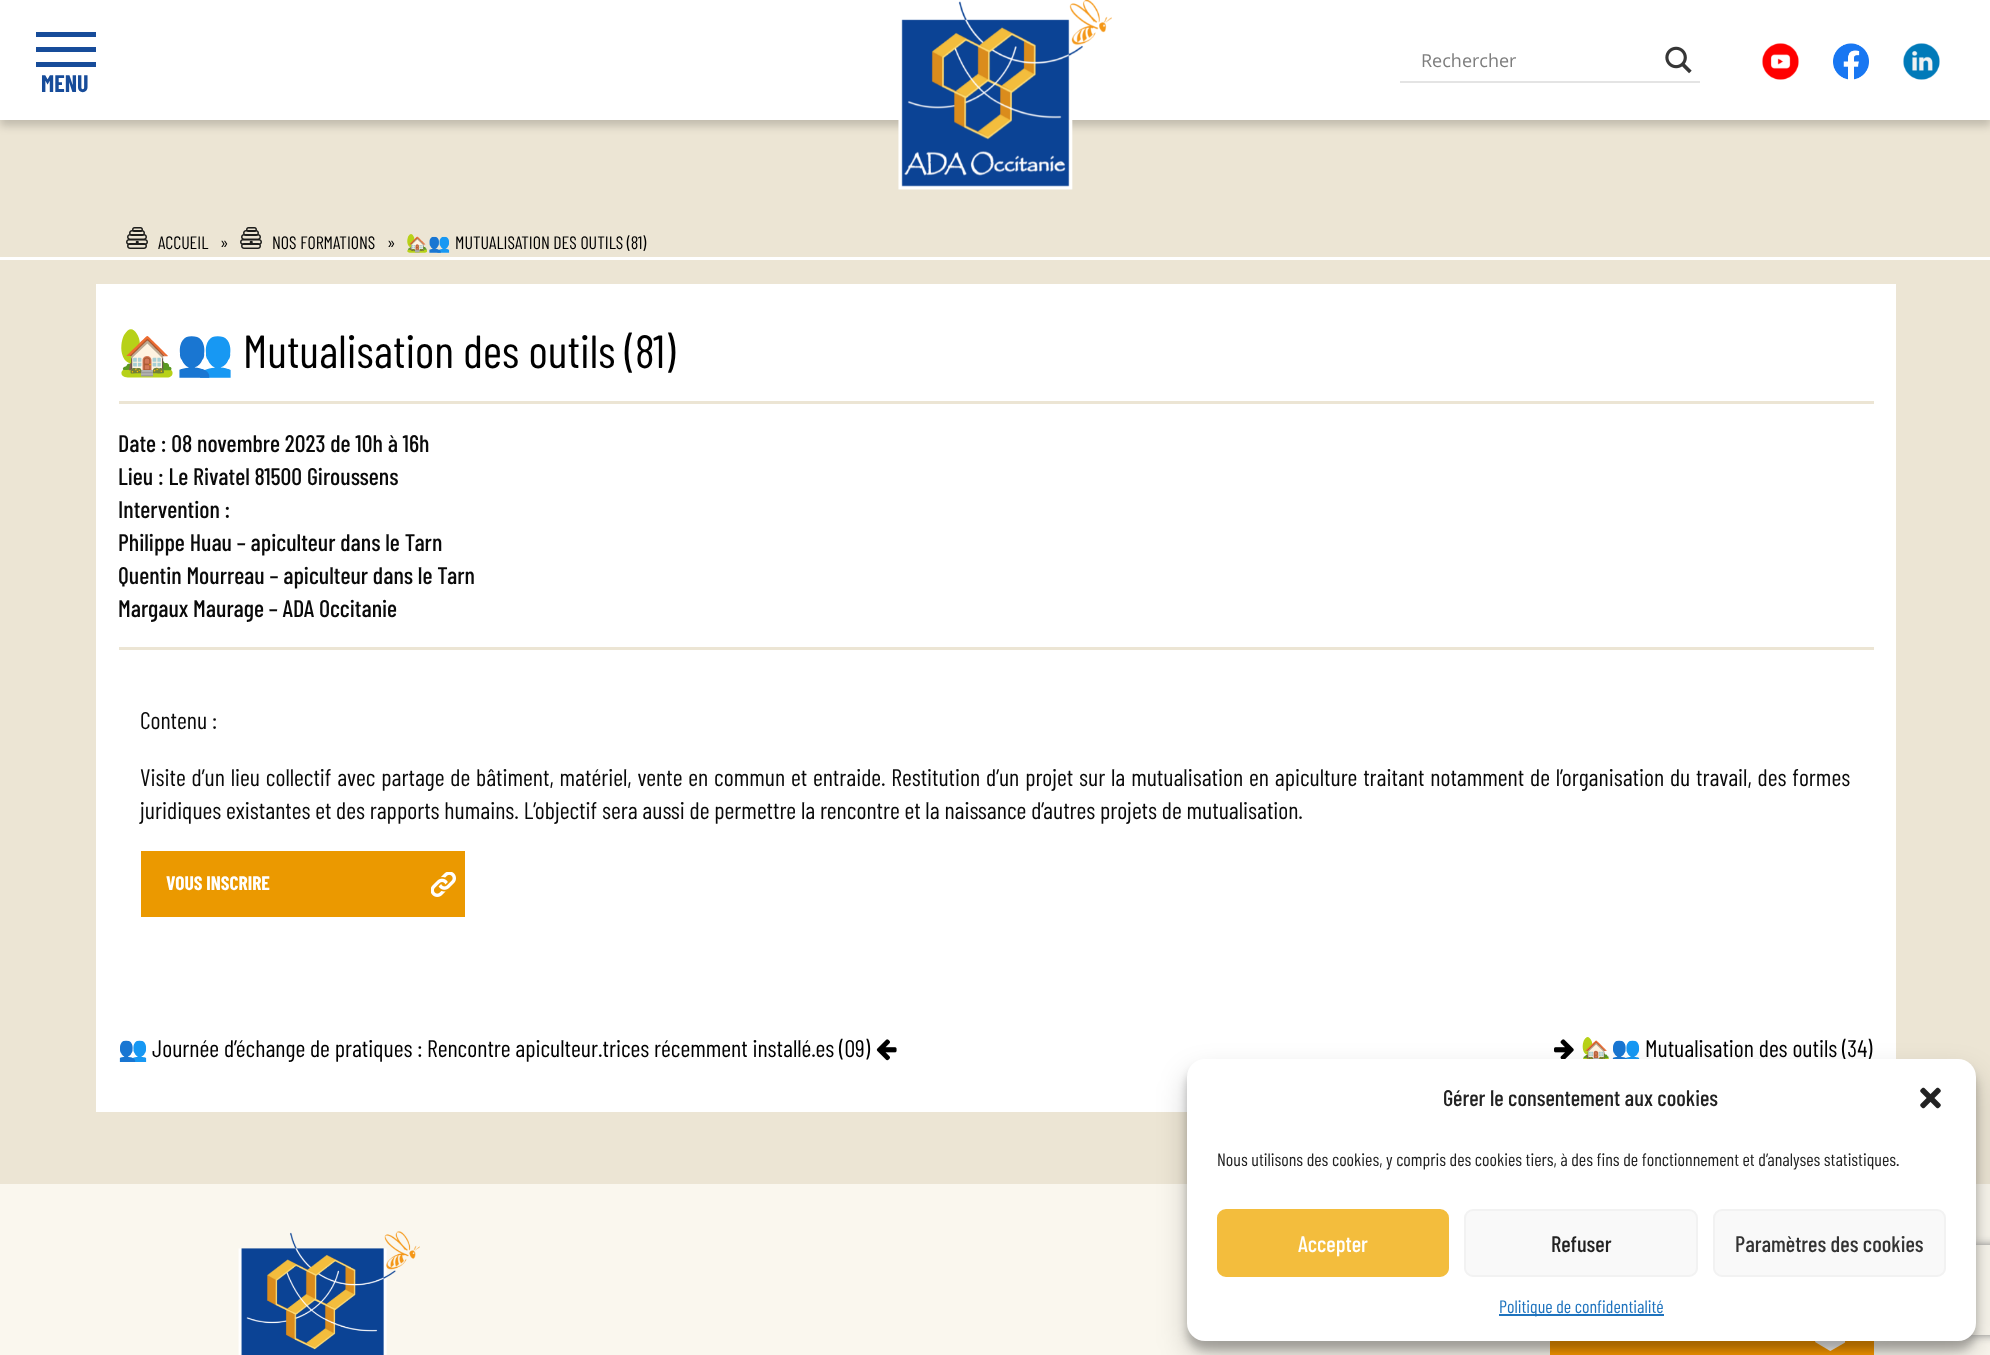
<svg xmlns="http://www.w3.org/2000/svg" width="1990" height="1355">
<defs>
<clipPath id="clip1"><path d="M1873 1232h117v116h-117zm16 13h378c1.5 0 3 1.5 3 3v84c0 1.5-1.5 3-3 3h-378c-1.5 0-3-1.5-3-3v-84c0-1.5 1.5-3 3-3z" clip-rule="evenodd"/></clipPath>
</defs>
<rect width="100%" height="100%" fill="#ece5d4"/>
<rect y="6" width="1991" height="120" fill="#0000002e" filter="blur(4px)"/>
<rect width="1990" height="120" fill="#fff"/>
<image x="898" y="0" width="214" height="190" href="media/1.png"/>
<path d="M1400 81v2h300v-42v40z" fill="#e4e4e4"/>
<text x="1421" y="67" style="font-family:Open Sans;font-size:18px;fill:#7d7d7d">Rechercher</text>
<image x="1665" y="46" width="27" height="28" href="media/2.png"/>
<image x="1762" y="43" width="37" height="37" href="media/3.png"/>
<image x="1833" y="43" width="36" height="37" href="media/4.png"/>
<image x="1903" y="43" width="37" height="37" href="media/5.png"/>
<rect x="36" y="47" width="60" height="5" fill="#174c9a"/>
<rect x="36" y="32" width="60" height="5" fill="#174c9a"/>
<rect x="36" y="62" width="60" height="5" fill="#174c9a"/>
<text x="41" y="92" style="font-family:Barlow Condensed;font-size:24px;font-weight:bold;fill:#174c9a">MENU</text>
<rect y="257" width="1990" height="3" fill="#fff"/>
<image x="126" y="227" width="22" height="22" href="media/6.png"/>
<text x="158" y="249" style="font-family:Barlow Condensed;font-size:18px;fill:#000">ACCUEIL</text>
<text x="220" y="249" style="font-family:Barlow Condensed;font-size:18px;fill:#000">»</text>
<image x="240" y="227" width="22" height="22" href="media/6.png"/>
<text x="272" y="249" style="font-family:Barlow Condensed;font-size:18px;fill:#000">NOS FORMATIONS</text>
<text x="387" y="249" style="font-family:Barlow Condensed;font-size:18px;fill:#000">»</text>
<text x="406" y="249" style="font-family:Noto Color Emoji;font-size:18px;fill:#000">🏡👥</text>
<text x="455" y="249" style="font-family:Barlow Condensed;font-size:18px;fill:#000">MUTUALISATION DES OUTILS (81)</text>
<rect x="96" y="284" width="1800" height="828" fill="#fff"/>
<text x="118" y="368" style="font-family:Noto Color Emoji;font-size:46.5px;fill:#000">🏡👥</text>
<text x="243" y="368" style="font-family:Barlow Condensed;font-size:46.5px;fill:#000">Mutualisation des outils (81)</text>
<rect x="119" y="401" width="1755" height="3" fill="#ece5d4"/>
<rect x="119" y="647" width="1755" height="3" fill="#ece5d4"/>
<text x="118" y="452" style="font-family:Barlow Condensed;font-size:24px;font-weight:500;fill:#0a0a0a">Date : 08 novembre 2023 de 10h à 16h</text>
<text x="118" y="485" style="font-family:Barlow Condensed;font-size:24px;font-weight:500;fill:#0a0a0a">Lieu : Le Rivatel 81500 Giroussens</text>
<text x="118" y="518" style="font-family:Barlow Condensed;font-size:24px;font-weight:500;fill:#0a0a0a">Intervention :</text>
<text x="118" y="551" style="font-family:Barlow Condensed;font-size:24px;font-weight:500;fill:#0a0a0a">Philippe Huau – apiculteur dans le Tarn</text>
<text x="118" y="584" style="font-family:Barlow Condensed;font-size:24px;font-weight:500;fill:#0a0a0a">Quentin Mourreau – apiculteur dans le Tarn</text>
<text x="118" y="617" style="font-family:Barlow Condensed;font-size:24px;font-weight:500;fill:#0a0a0a">Margaux Maurage – ADA Occitanie</text>
<text x="140" y="729" style="font-family:Barlow Condensed;font-size:24px;fill:#0a0a0a">Contenu :</text>
<text x="140" y="786" word-spacing="1.05" style="font-family:Barlow Condensed;font-size:24px;fill:#0a0a0a">Visite d’un lieu collectif avec partage de bâtiment, matériel, vente en commun et entraide. Restitution d’un projet sur la mutualisation en apiculture traitant notamment de l’organisation du travail, des formes</text>
<text x="140" y="819" style="font-family:Barlow Condensed;font-size:24px;fill:#0a0a0a">juridiques existantes et des rapports humains. L’objectif sera aussi de permettre la rencontre et la naissance d’autres projets de mutualisation.</text>
<rect x="141" y="851" width="324" height="66" fill="#eb9900"/>
<text x="166" y="890" style="font-family:Barlow Condensed;font-size:19.5px;font-weight:bold;fill:#fff">VOUS INSCRIRE</text>
<image x="431" y="872" width="25" height="25" href="media/7.png"/>
<text x="118" y="1057" style="font-family:Noto Color Emoji;font-size:24px;fill:#000">👥</text>
<text x="152" y="1057" style="font-family:Barlow Condensed;font-size:24px;fill:#000">Journée d’échange de pratiques : Rencontre apiculteur.trices récemment installé.es (09)</text>
<image x="876" y="1039" width="21" height="22" href="media/8.png"/>
<image x="1554" y="1039" width="20" height="20" href="media/9.png"/>
<text x="1581" y="1057" style="font-family:Noto Color Emoji;font-size:24px;fill:#000">🏡👥</text>
<text x="1645" y="1057" style="font-family:Barlow Condensed;font-size:24px;fill:#000">Mutualisation des outils (34)</text>
<rect y="1184" width="1990" height="171" fill="#faf7ee"/>
<rect x="1550" y="1341" width="324" height="14" fill="#ff9c00"/>
<image x="1815" y="1341" width="31" height="10" href="media/12.png"/>
<rect x="1187" y="1068" width="789" height="282" rx="18" fill="#0000003b" filter="blur(4.5px)"/>
<rect x="1187" y="1074" width="789" height="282" rx="18" fill="#00000030" filter="blur(15px)"/>
<g clip-path="url(#clip1)">
<rect x="1886" y="1245" width="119" height="90" rx="3" fill="#808080" filter="blur(4px)"/>
</g>
<rect x="1187" y="1059" width="789" height="282" rx="18" fill="#fff"/>
<text x="1443" y="1106" style="font-family:Barlow Condensed;font-size:22.5px;font-weight:500;fill:#222">Gérer le consentement aux cookies</text>
<image x="1920" y="1087" width="21" height="22" href="media/10.png"/>
<text x="1217" y="1166" style="font-family:Barlow Condensed;font-size:18px;fill:#222">Nous utilisons des cookies, y compris des cookies tiers, à des fins de fonctionnement et d’analyses statistiques.</text>
<rect x="1218" y="1210" width="230" height="66" rx="8" fill="#f3bd3d" stroke="#f3bd3d" stroke-width="2"/>
<text x="1298" y="1252" style="font-family:Barlow Condensed;font-size:22.5px;font-weight:500;fill:#fff">Accepter</text>
<rect x="1465" y="1210" width="232" height="66" rx="8" fill="#f9f9f9" stroke="#f2f2f2" stroke-width="2"/>
<text x="1551" y="1252" style="font-family:Barlow Condensed;font-size:22.5px;font-weight:500;fill:#222">Refuser</text>
<rect x="1714" y="1210" width="231" height="66" rx="8" fill="#f9f9f9" stroke="#f2f2f2" stroke-width="2"/>
<text x="1735" y="1252" style="font-family:Barlow Condensed;font-size:22.5px;font-weight:500;fill:#333">Paramètres des cookies</text>
<rect x="1499" y="1314" width="165" height="2" fill="#1e73be"/>
<text x="1499" y="1313" style="font-family:Barlow Condensed;font-size:18px;fill:#1e73be">Politique de confidentialité</text>
<image x="238" y="1231" width="182" height="124" href="media/11.png"/>
</svg>
